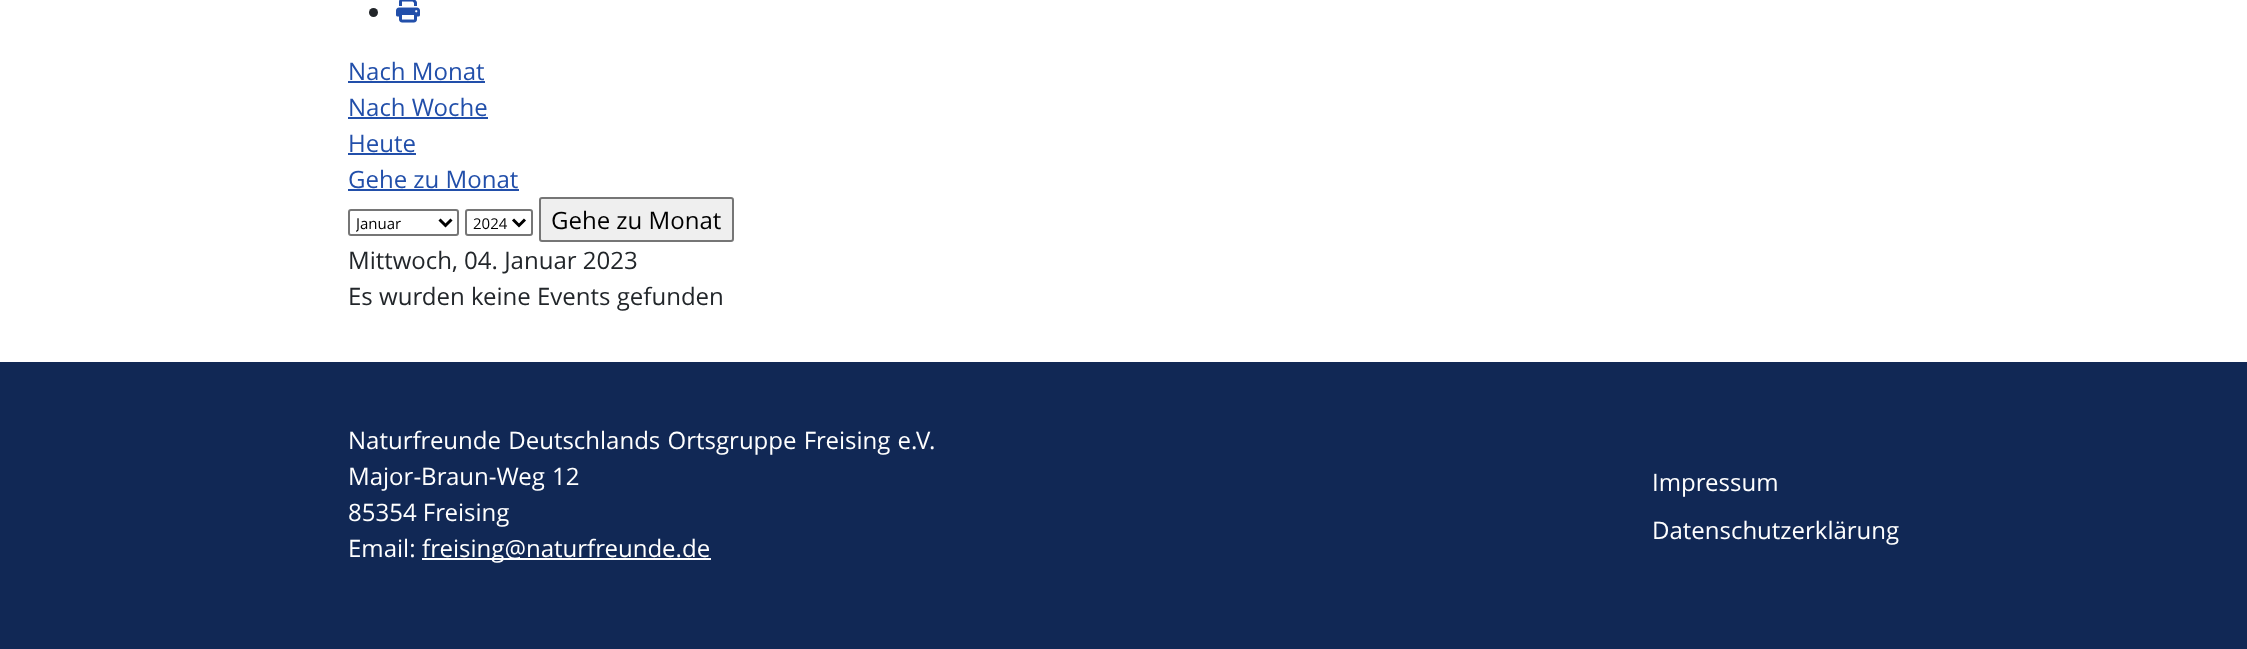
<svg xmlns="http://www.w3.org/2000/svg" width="2247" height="649">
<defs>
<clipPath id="clip1"><rect x="356" y="210" width="78" height="24"/></clipPath>
</defs>
<rect width="100%" height="100%" fill="#fff"/>
<circle cx="373.5" cy="12.5" r="4.5" fill="#22262a"/>
<image x="396" y="0" width="24" height="23" href="media/1.png"/>
<text x="348" y="80" style="font-family:Open Sans;font-size:24px;fill:#224faa">Nach Monat</text>
<rect x="348" y="81" width="137" height="2" fill="#224faa"/>
<text x="348" y="116" style="font-family:Open Sans;font-size:24px;fill:#224faa">Nach Woche</text>
<rect x="348" y="117" width="140" height="2" fill="#224faa"/>
<text x="348" y="152" style="font-family:Open Sans;font-size:24px;fill:#224faa">Heute</text>
<rect x="348" y="153" width="68" height="2" fill="#224faa"/>
<text x="348" y="188" style="font-family:Open Sans;font-size:24px;fill:#224faa">Gehe zu Monat</text>
<rect x="348" y="189" width="171" height="2" fill="#224faa"/>
<rect x="349" y="210" width="109" height="25" rx="2" fill="none" stroke="#767676" stroke-width="2"/>
<path d="M439.5 219.5l6 6l6-6" fill="none" stroke="#000" stroke-width="3"/>
<g clip-path="url(#clip1)">
<text x="356" y="229" style="font-family:Open Sans;font-size:15px;fill:#000">Januar</text>
</g>
<rect x="466" y="210" width="66" height="25" rx="2" fill="none" stroke="#767676" stroke-width="2"/>
<path d="M513 219.5l6 6l6-6" fill="none" stroke="#000" stroke-width="3"/>
<text x="473" y="229" style="font-family:Open Sans;font-size:15px;fill:#000">2024</text>
<rect x="540" y="198" width="193" height="43" rx="2" fill="#efefef" stroke="#767676" stroke-width="2"/>
<text x="551" y="229" style="font-family:Open Sans;font-size:24px;fill:#000">Gehe zu Monat</text>
<text x="348" y="269" style="font-family:Open Sans;font-size:24px;fill:#22262a">Mittwoch, 04. Januar 2023</text>
<text x="348" y="305" style="font-family:Open Sans;font-size:24px;fill:#22262a">Es wurden keine Events gefunden</text>
<rect y="362" width="2247" height="287" fill="#112855"/>
<text x="348" y="449" word-spacing="1" style="font-family:Open Sans;font-size:24px;fill:#fff">Naturfreunde Deutschlands Ortsgruppe Freising e.V.</text>
<text x="348" y="485" word-spacing="1" style="font-family:Open Sans;font-size:24px;fill:#fff">Major-Braun-Weg 12</text>
<text x="348" y="521" style="font-family:Open Sans;font-size:24px;fill:#fff">85354 Freising</text>
<text x="348" y="557" style="font-family:Open Sans;font-size:24px;fill:#fff">Email:</text>
<rect x="422" y="558" width="289" height="2" fill="#fff"/>
<text x="422" y="557" style="font-family:Open Sans;font-size:24px;fill:#fff">freising@naturfreunde.de</text>
<text x="1652" y="491" style="font-family:Open Sans;font-size:24px;fill:#fff">Impressum</text>
<text x="1652" y="539" style="font-family:Open Sans;font-size:24px;fill:#fff">Datenschutzerklärung</text>
</svg>
